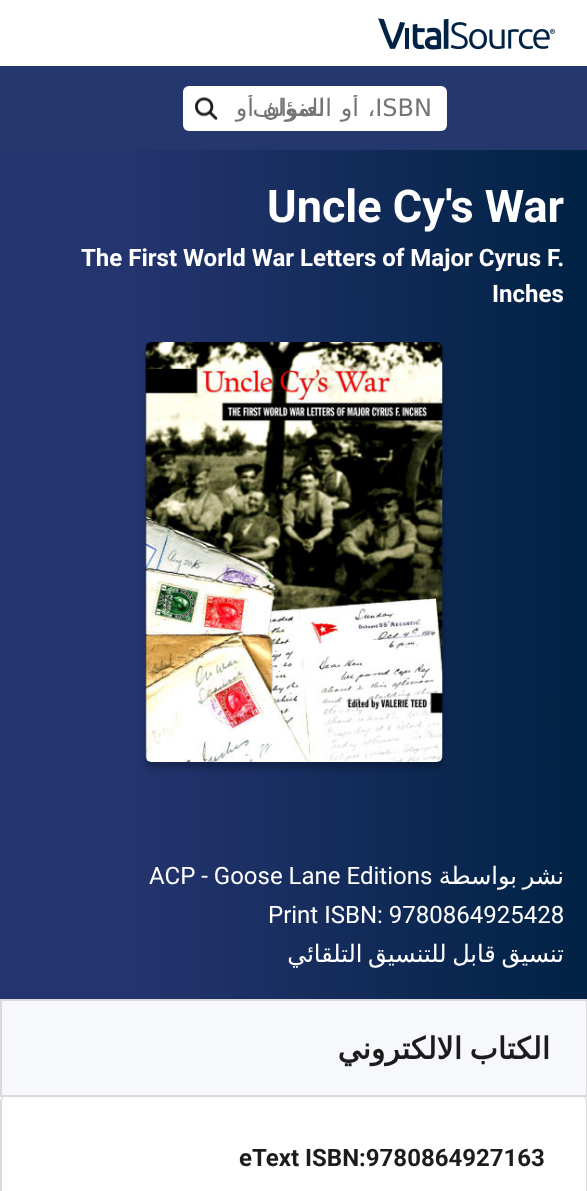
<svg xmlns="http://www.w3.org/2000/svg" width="587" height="1191">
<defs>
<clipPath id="clip1"><rect x="231" y="95" width="201" height="28"/></clipPath>
<linearGradient id="g1" gradientUnits="userSpaceOnUse" x1="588" y1="559" x2="0" y2="560"><stop offset="0" stop-color="#024"/><stop offset="0.77" stop-color="#24346e"/></linearGradient>
</defs>
<rect width="100%" height="100%" fill="#fff"/>
<image x="378" y="18" width="177" height="32" href="media/1.png"/>
<rect y="66" width="587" height="84" fill="#24386e"/>
<rect x="183" y="86" width="264" height="45" rx="6" fill="#fff"/>
<image x="195" y="97" width="23" height="24" href="media/2.png"/>
<g clip-path="url(#clip1)">
<text x="432" y="116" word-spacing="1" style="font-family:DejaVu Sans;font-size:24px;direction:rtl;fill:#757575">ISBN، أو العنوان أو</text>
</g>
<text x="325" y="116" style="font-family:DejaVu Sans;font-size:24px;direction:rtl;fill:#757575">المؤلف</text>
<rect y="1001" width="587" height="101" fill="#f6f8fc"/>
<rect y="150" width="587" height="849" fill="url(#g1)"/>
<text x="267" y="222" style="font-family:Roboto;font-size:45px;font-weight:bold;fill:#fff">Uncle Cy's War</text>
<text x="81" y="266" style="font-family:Roboto;font-size:24px;font-weight:bold;fill:#fff">The First World War Letters of Major Cyrus F.</text>
<text x="492" y="302" style="font-family:Roboto;font-size:24px;font-weight:bold;fill:#fff">Inches</text>
<rect x="146" y="348" width="297" height="420" rx="6" fill="#00000040" filter="blur(3px)"/>
<image x="145" y="342" width="298" height="420" href="media/3.png"/>
<text x="149" y="884" style="font-family:Roboto;font-size:24px;fill:#fff">ACP - Goose Lane Editions</text>
<text x="564" y="884" word-spacing="-2" style="font-family:DejaVu Sans;font-size:24px;direction:rtl;fill:#fff">نشر بواسطة</text>
<text x="268" y="923" style="font-family:Roboto;font-size:24px;fill:#fff">Print ISBN: 9780864925428</text>
<text x="564" y="962" word-spacing="-2" style="font-family:DejaVu Sans;font-size:24px;direction:rtl;fill:#fff">تنسيق قابل للتنسيق التلقائي</text>
<rect x="1" y="1000" width="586" height="96" fill="none" stroke="#dadada" stroke-width="2"/>
<text x="550" y="1059" word-spacing="-2" style="font-family:DejaVu Sans;font-size:30px;font-weight:bold;direction:rtl;fill:#1c1c1c">الكتاب الالكتروني</text>
<rect y="1097" width="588" height="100" rx="6" fill="#fff"/>
<path d="M6 1096h576c3 0 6 3 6 6v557c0 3-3 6-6 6h-576c-3 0-6-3-6-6v-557c0-3 3-6 6-6zm0 0h576c2 0 4 3 4 6v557c0 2-2 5-4 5h-576c-2 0-4-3-4-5v-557c0-3 2-6 4-6z" fill="#dadada" fill-rule="evenodd"/>
<text x="239" y="1166" style="font-family:Roboto;font-size:24px;font-weight:bold;fill:#1c1c1c">eText ISBN:9780864927163</text>
</svg>
